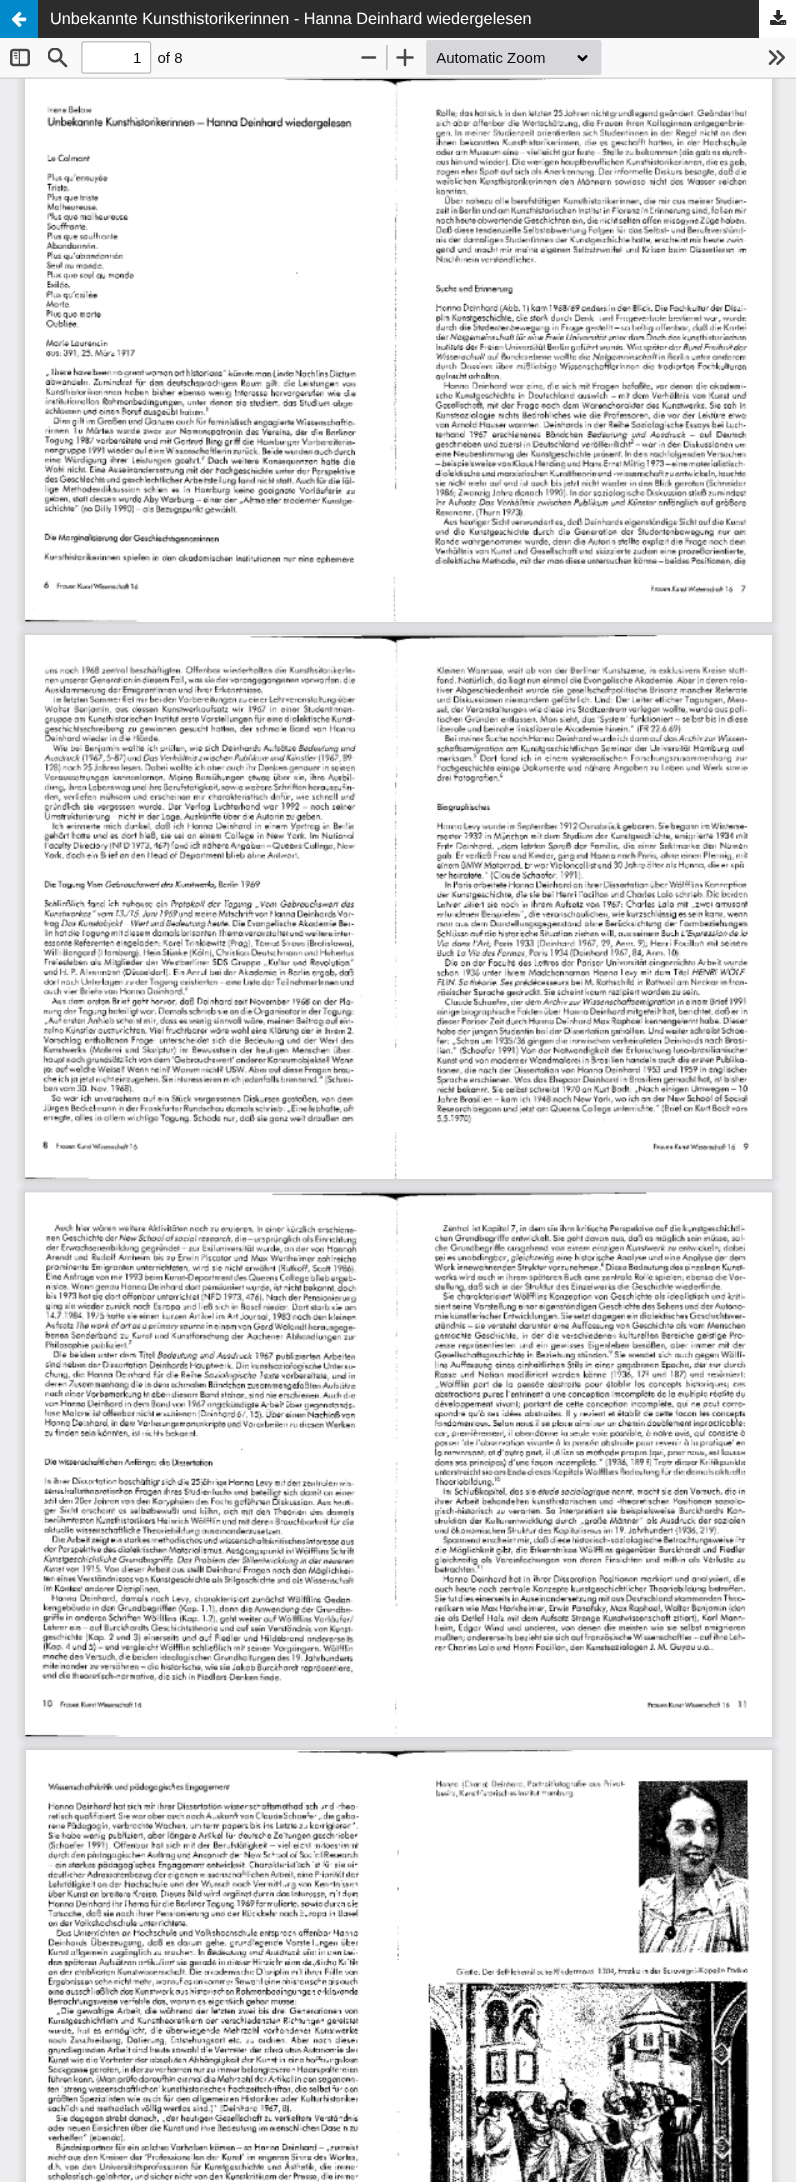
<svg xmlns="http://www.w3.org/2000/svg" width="796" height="2182">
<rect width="100%" height="100%" fill="#fff"/>
<rect width="38" height="38" fill="#008acb"/>
<image x="11" y="11" width="16" height="16" href="media/1.png"/>
<rect x="38" width="721" height="38" fill="#2c2c2c"/>
<text x="50" y="24" style="font-family:Liberation Sans;font-size:16.25px;fill:#fff">Unbekannte Kunsthistorikerinnen - Hanna Deinhard wiedergelesen</text>
<image x="770" y="10" width="17" height="15" href="media/2.png"/>
<image x="0" y="38" width="796" height="2144" href="media/3.png"/>
</svg>
